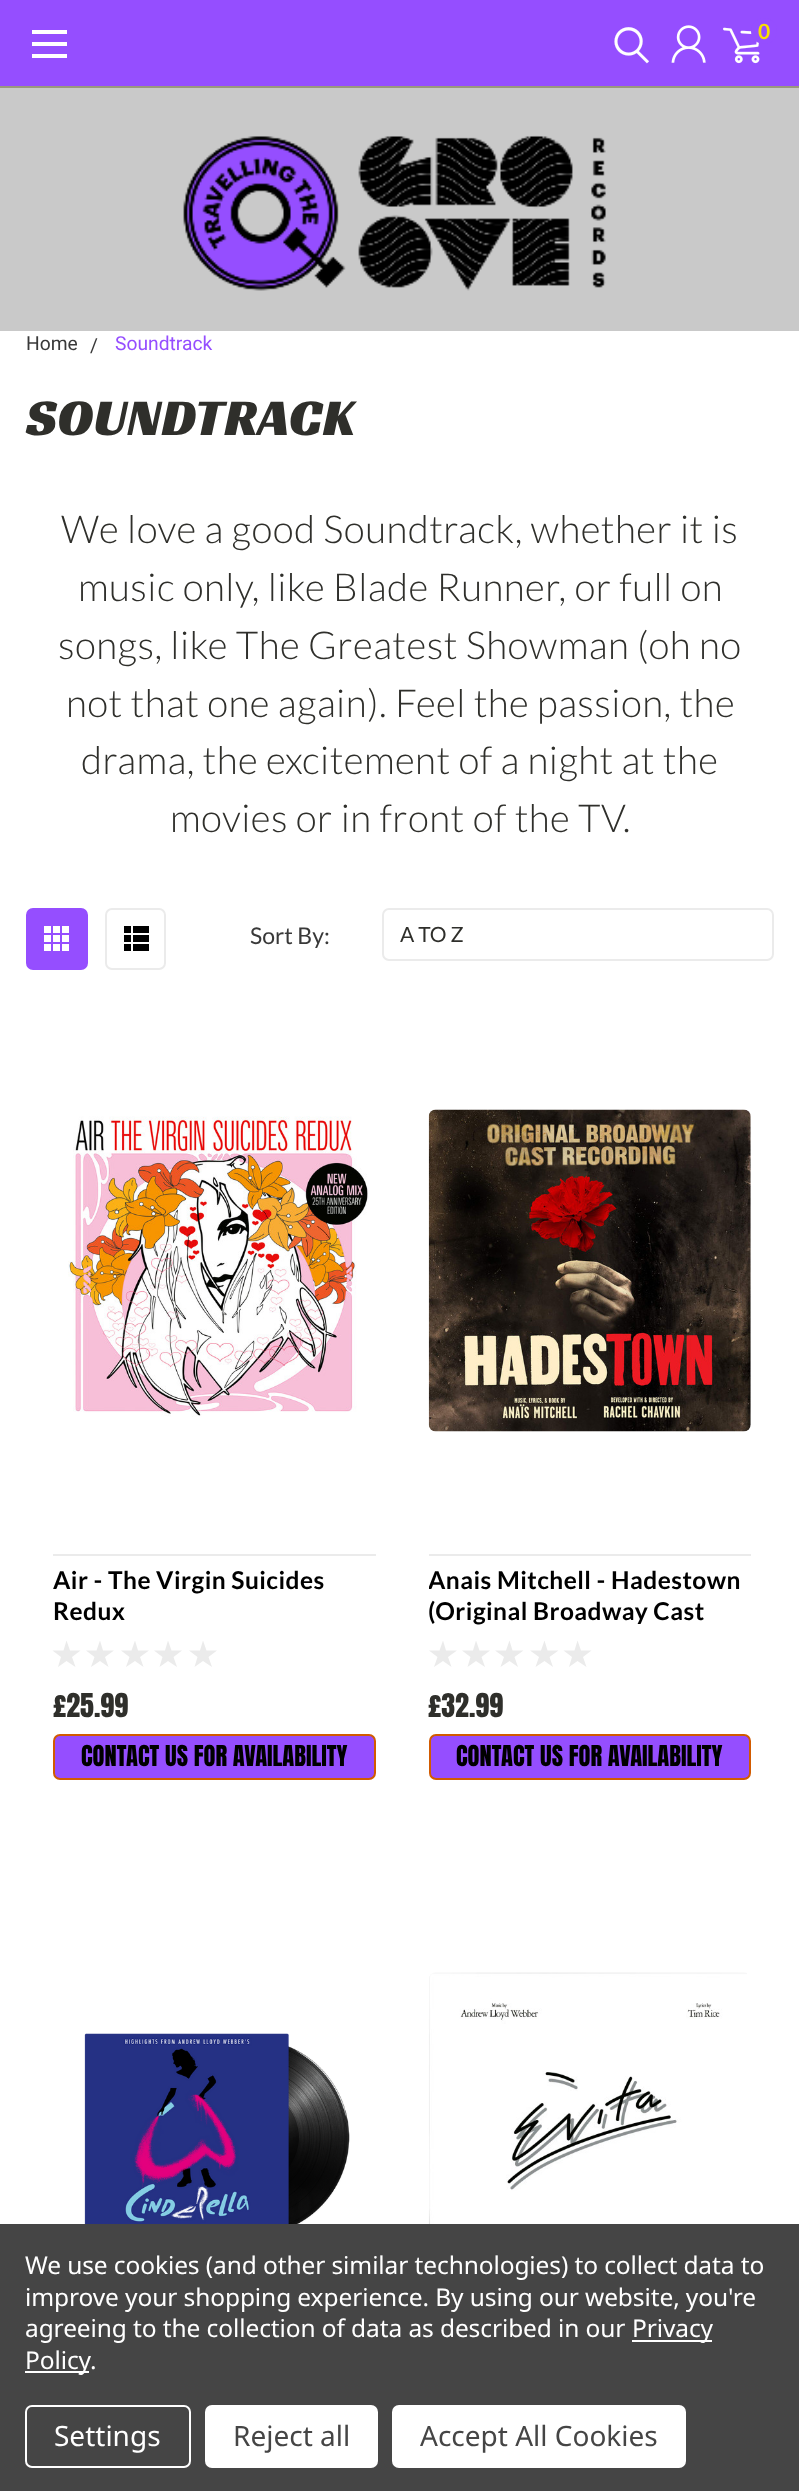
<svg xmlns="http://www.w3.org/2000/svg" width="799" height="2491">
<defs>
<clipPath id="clip1"><rect x="429" y="1565" width="322" height="61"/></clipPath>
</defs>
<rect width="100%" height="100%" fill="#fff"/>
<rect width="799" height="86" fill="#954eff"/>
<rect y="86" width="799" height="2" fill="#9a977e"/>
<rect x="32" y="42" width="35" height="4" fill="#fff"/>
<rect x="32" y="30" width="35" height="4" fill="#fff"/>
<rect x="32" y="54" width="35" height="4" fill="#fff"/>
<image x="614" y="27" width="35" height="37" href="media/1.png"/>
<image x="671" y="25" width="35" height="38" href="media/2.png"/>
<image x="723" y="27" width="37" height="37" href="media/3.png"/>
<circle cx="764" cy="31" r="13" fill="#954eff"/>
<text x="758" y="39" style="font-family:Lato;font-size:21px;font-weight:bold;fill:#f9df01">0</text>
<rect y="88" width="799" height="243" fill="#c9c9c9"/>
<image x="183" y="135" width="423" height="156" href="media/4.png"/>
<text x="26" y="350" style="font-family:Roboto;font-size:19.25px;fill:#393939">Home</text>
<text x="90" y="352" style="font-family:Roboto;font-size:19.25px;fill:#393939">/</text>
<text x="115" y="350" style="font-family:Roboto;font-size:19.25px;fill:#954eff">Soundtrack</text>
<text x="26" y="435" style="font-family:Racing Sans One;font-size:52.5px;letter-spacing:0.45px;fill:#2f2f2b">SOUNDTRACK</text>
<text x="61" y="543" style="font-family:Lato;font-size:38.5px;font-weight:300;letter-spacing:0.45px;fill:#2f2f2b">We love a good Soundtrack, whether it is</text>
<text x="78" y="601" style="font-family:Lato;font-size:38.5px;font-weight:300;letter-spacing:0.45px;fill:#2f2f2b">music only, like Blade Runner, or full on</text>
<text x="58" y="659" style="font-family:Lato;font-size:38.5px;font-weight:300;letter-spacing:0.45px;fill:#2f2f2b">songs, like The Greatest Showman (oh no</text>
<text x="66" y="717" style="font-family:Lato;font-size:38.5px;font-weight:300;letter-spacing:0.45px;fill:#2f2f2b">not that one again). Feel the passion, the</text>
<text x="81" y="774" style="font-family:Lato;font-size:38.5px;font-weight:300;letter-spacing:0.45px;fill:#2f2f2b">drama, the excitement of a night at the</text>
<text x="170" y="832" style="font-family:Lato;font-size:38.5px;font-weight:300;letter-spacing:0.45px;fill:#2f2f2b">movies or in front of the TV.</text>
<rect x="27" y="909" width="60" height="60" rx="6" fill="#954eff" stroke="#954eff" stroke-width="2"/>
<image x="44" y="926" width="25" height="25" href="media/5.png"/>
<rect x="106" y="909" width="59" height="60" rx="6" fill="none" stroke="#ebebeb" stroke-width="2"/>
<image x="124" y="926" width="25" height="25" href="media/6.png"/>
<text x="250" y="944" style="font-family:Lato;font-size:23px;fill:#393939">Sort By:</text>
<rect x="383" y="909" width="390" height="51" rx="6" fill="none" stroke="#ebebeb" stroke-width="2"/>
<text x="400" y="942" style="font-family:Lato;font-size:21px;fill:#2f2f2b">A TO Z</text>
<image x="68" y="1116" width="301" height="301" href="media/7.png"/>
<rect x="53" y="1554" width="323" height="2" fill="#ebebeb"/>
<text x="53" y="1589" style="font-family:Lato;font-size:24.5px;font-weight:bold;letter-spacing:0.45px;fill:#000">Air - The Virgin Suicides</text>
<text x="53" y="1620" style="font-family:Lato;font-size:24.5px;font-weight:bold;letter-spacing:0.45px;fill:#000">Redux</text>
<path d="M66.5 1640.5l3.5 10h10.5l-8.5 6.5l3.5 10l-9-6l-8.5 6l3-10l-8.5-6.5h11zm33.5 0l3 10h11l-9 6.5l3.5 10l-8.5-6l-9 6l3.5-10l-8.5-6.5h10.5z" fill="#ebebeb"/>
<path d="M135 1640.5l3 10h11l-9 6.5l3.5 10l-8.5-6l-9 6l3.5-10l-8.5-6.5h10.5zm33 0l3.5 10h10.5l-8.5 6.5l3.5 10l-9-6l-8.5 6l3-10l-8.5-6.5h11z" fill="#ebebeb"/>
<path d="M203 1640.5l3.5 10h10.5l-8.5 6.5l3.5 10l-9-6l-8.5 6l3-10l-8.5-6.5h11z" fill="#ebebeb"/>
<text x="53" y="1717" style="font-family:Anton;font-size:28px;fill:#2f2f2b">£25.99</text>
<rect x="54" y="1735" width="321" height="44" rx="6" fill="#954eff" stroke="#d25b00" stroke-width="2"/>
<text x="81" y="1766" style="font-family:Anton;font-size:24.5px;fill:#000">CONTACT US FOR AVAILABILITY</text>
<image x="428" y="1109" width="323" height="323" href="media/8.png"/>
<rect x="429" y="1554" width="322" height="2" fill="#ebebeb"/>
<g clip-path="url(#clip1)">
<text x="428" y="1589" style="font-family:Lato;font-size:24.5px;font-weight:bold;letter-spacing:0.45px;fill:#000">Anais Mitchell - Hadestown</text>
</g>
<text x="428" y="1620" style="font-family:Lato;font-size:24.5px;font-weight:bold;letter-spacing:0.45px;fill:#000">(Original Broadway Cast</text>
<path d="M443 1640.5l3 10h11l-9 6.5l3.5 10l-8.5-6l-9 6l3.5-10l-8.5-6.5h10.5zm33 0l3.5 10h10.5l-8.5 6.5l3.5 10l-9-6l-8.5 6l3-10l-8.5-6.5h11z" fill="#ebebeb"/>
<path d="M509.5 1640.5l3 10h11l-9 6.5l3.5 10l-8.5-6l-9 6l3.5-10l-9-6.5h11zm35 0l3 10h11l-9 6.5l3.5 10l-8.5-6l-9 6l3.5-10l-9-6.5h11z" fill="#ebebeb"/>
<path d="M577.5 1640.5l3.5 10h10.5l-8.5 6.5l3.5 10l-9-6l-8.5 6l3-10l-8.5-6.5h11z" fill="#ebebeb"/>
<text x="428" y="1717" style="font-family:Anton;font-size:28px;fill:#2f2f2b">£32.99</text>
<rect x="430" y="1735" width="320" height="44" rx="6" fill="#954eff" stroke="#d25b00" stroke-width="2"/>
<text x="456" y="1766" style="font-family:Anton;font-size:24.5px;fill:#000">CONTACT US FOR AVAILABILITY</text>
<image x="84" y="2033" width="266" height="191" href="media/9.png"/>
<image x="428" y="1972" width="319" height="252" href="media/10.png"/>
<rect y="2224" width="799" height="267" fill="#454545"/>
<text x="25" y="2274" style="font-family:Noto Sans;font-size:24.5px;letter-spacing:-0.1px;fill:#fff">We use cookies (and other similar technologies) to collect data to</text>
<text x="25" y="2306" style="font-family:Noto Sans;font-size:24.5px;letter-spacing:-0.1px;fill:#fff">improve your shopping experience. By using our website, you're</text>
<text x="25" y="2337" style="font-family:Noto Sans;font-size:24.5px;letter-spacing:-0.1px;fill:#fff">agreeing to the collection of data as described in our</text>
<rect x="632" y="2340" width="80" height="2" fill="#fff"/>
<text x="632" y="2337" style="font-family:Noto Sans;font-size:24.5px;letter-spacing:-0.1px;fill:#fff">Privacy</text>
<rect x="25" y="2371" width="64" height="2" fill="#fff"/>
<text x="25" y="2369" style="font-family:Noto Sans;font-size:24.5px;letter-spacing:-0.1px;fill:#fff">Policy</text>
<text x="90" y="2369" style="font-family:Noto Sans;font-size:24.5px;letter-spacing:-0.1px;fill:#fff">.</text>
<rect x="26" y="2406" width="164" height="61" rx="6" fill="none" stroke="#fff" stroke-width="2"/>
<text x="54" y="2446" style="font-family:Noto Sans;font-size:28px;fill:#fff">Settings</text>
<rect x="205" y="2405" width="173" height="63" rx="7" fill="#fff"/>
<text x="233" y="2446" style="font-family:Noto Sans;font-size:28px;fill:#454545">Reject all</text>
<rect x="392" y="2405" width="294" height="63" rx="7" fill="#fff"/>
<text x="420" y="2446" style="font-family:Noto Sans;font-size:28px;fill:#454545">Accept All Cookies</text>
</svg>
